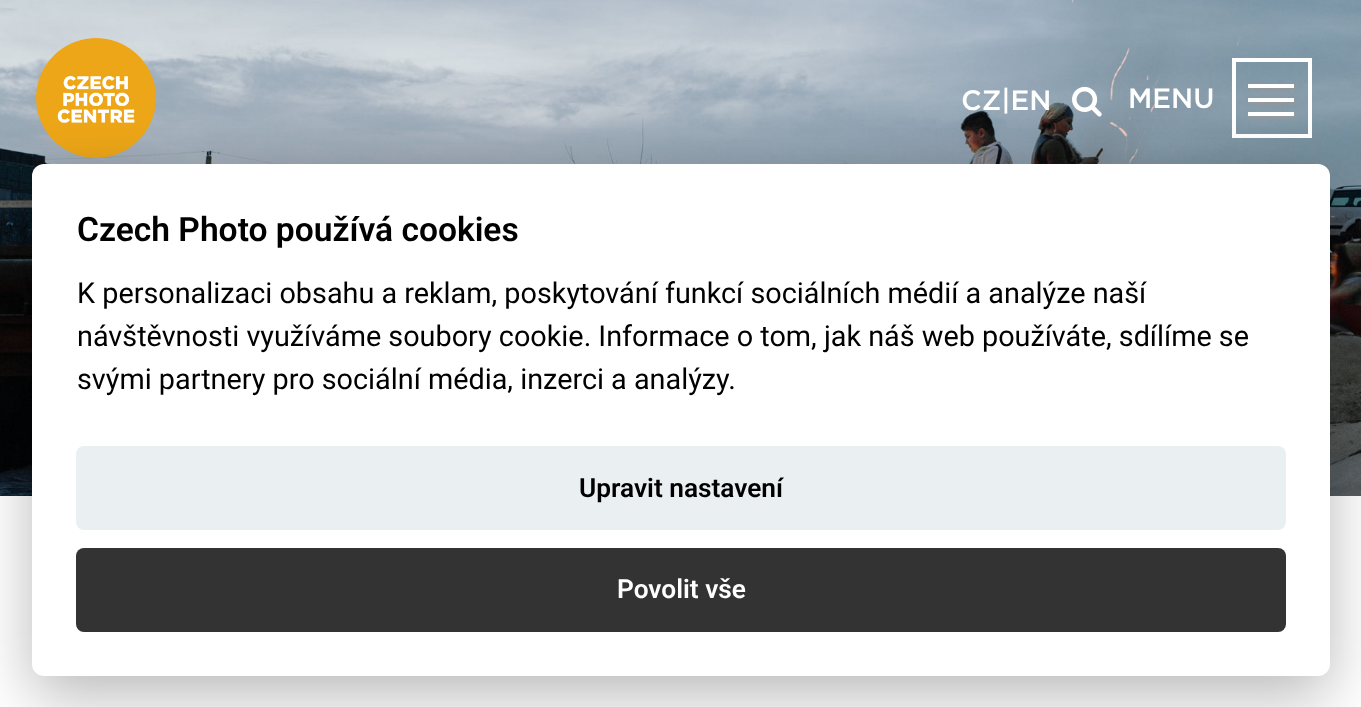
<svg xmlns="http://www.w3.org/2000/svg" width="1361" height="707">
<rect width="100%" height="100%" fill="#fff"/>
<image x="0" y="0" width="1361" height="496" href="media/1.png"/>
<image x="36" y="38" width="120" height="120" href="media/2.png"/>
<text x="961" y="110" style="font-family:Gotham;font-size:28px;font-weight:500;fill:#fff">CZ|EN</text>
<image x="1072" y="86" width="30" height="31" href="media/3.png"/>
<rect x="1234" y="60" width="76" height="76" fill="none" stroke="#fff" stroke-width="4"/>
<text x="1128" y="108" style="font-family:Gotham;font-size:28px;font-weight:500;fill:#fff">MENU</text>
<rect x="1250" y="86" width="46" height="4" fill="#999797" filter="blur(2px)"/>
<rect x="1248" y="84" width="46" height="4" fill="#fff"/>
<rect x="1250" y="100" width="46" height="4" fill="#999797" filter="blur(2px)"/>
<rect x="1248" y="98" width="46" height="4" fill="#fff"/>
<rect x="1250" y="114" width="46" height="4" fill="#999797" filter="blur(2px)"/>
<rect x="1248" y="112" width="46" height="4" fill="#fff"/>
<rect x="32" y="184" width="1298" height="512" rx="12" fill="#02020347" filter="blur(30px)"/>
<rect x="32" y="164" width="1298" height="512" rx="12" fill="#fff"/>
<text x="77" y="241" style="font-family:Roboto;font-size:33.6px;font-weight:600;fill:#000">Czech Photo používá cookies</text>
<text x="77" y="303" style="font-family:Roboto;font-size:28.8px;fill:#000">K personalizaci obsahu a reklam, poskytování funkcí sociálních médií a analýze naší</text>
<text x="77" y="346" style="font-family:Roboto;font-size:28.8px;fill:#000">návštěvnosti využíváme soubory cookie. Informace o tom, jak náš web používáte, sdílíme se</text>
<text x="77" y="389" style="font-family:Roboto;font-size:28.8px;fill:#000">svými partnery pro sociální média, inzerci a analýzy.</text>
<rect x="76" y="446" width="1210" height="84" rx="8" fill="#eaeff2"/>
<text x="579" y="497" style="font-family:Roboto;font-size:26.25px;font-weight:600;fill:#000">Upravit nastavení</text>
<rect x="76" y="548" width="1210" height="84" rx="8" fill="#333"/>
<text x="617" y="598" style="font-family:Roboto;font-size:26.25px;font-weight:600;fill:#fff">Povolit vše</text>
</svg>
